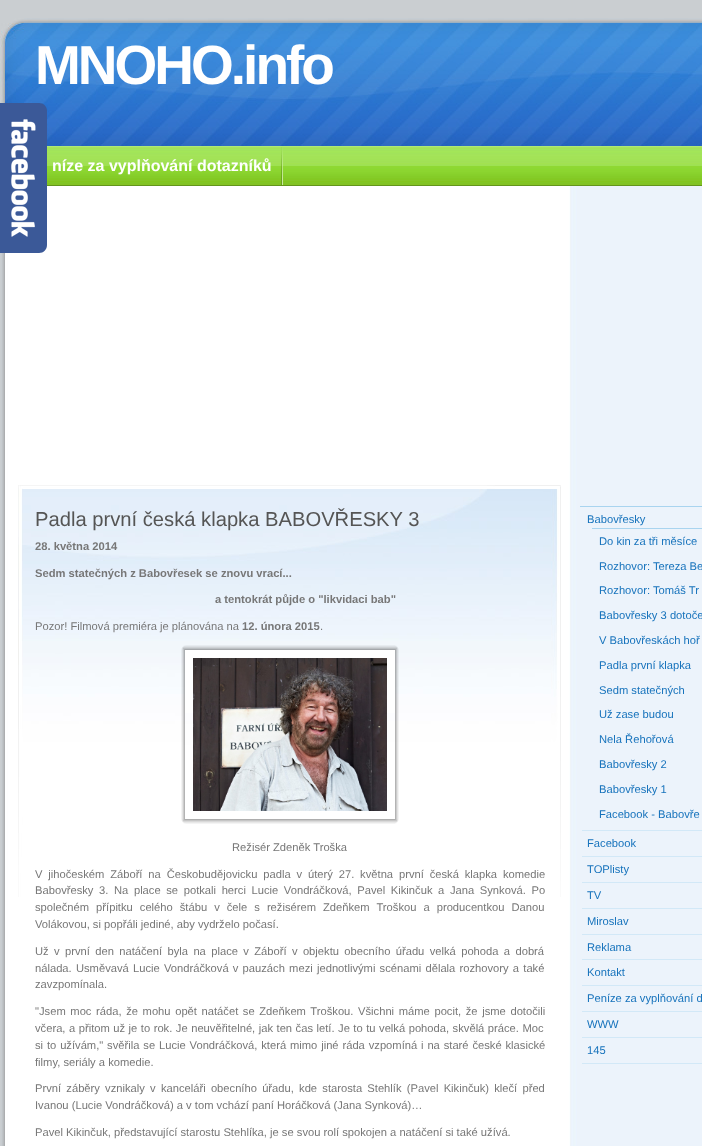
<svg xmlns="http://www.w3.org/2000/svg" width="702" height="1146">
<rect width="100%" height="100%" fill="#caced1"/>
<image x="0" y="186" width="702" height="960" href="media/1.png"/>
<image x="0" y="18" width="702" height="128" href="media/2.png"/>
<text x="35" y="84" style="font-family:Liberation Sans;font-size:55px;font-weight:bold;letter-spacing:-3px;fill:#fff">MNOHO.info</text>
<path d="M0 103h39c4.5 0 8 3.5 8 8v134c0 4.5-3.5 8-8 8h-39z" fill="#3b5998"/>
<image x="11" y="119" width="25" height="118" href="media/3.png"/>
<image x="47" y="146" width="655" height="40" href="media/4.png"/>
<image x="281" y="147" width="2" height="39" href="media/5.png"/>
<text x="52" y="171" style="font-family:Liberation Sans;font-size:16px;font-weight:bold;fill:#fff">níze za vyplňování dotazníků</text>
<image x="18" y="485" width="543" height="412" href="media/6.png"/>
<text x="35" y="526" style="font-family:Liberation Sans;font-size:20.2px;fill:#555">Padla první česká klapka BABOVŘESKY 3</text>
<text x="35" y="550" style="font-family:Liberation Sans;font-size:11.2px;font-weight:bold;fill:#777">28. května 2014</text>
<text x="35" y="577" style="font-family:Liberation Sans;font-size:11.2px;font-weight:bold;fill:#777">Sedm statečných z Babovřesek se znovu vrací...</text>
<text x="215" y="603" style="font-family:Liberation Sans;font-size:11.2px;font-weight:bold;fill:#777">a tentokrát půjde o "likvidaci bab"</text>
<text x="35" y="630" style="font-family:Liberation Sans;font-size:11.2px;fill:#777">Pozor! Filmová premiéra je plánována na</text>
<text x="242" y="630" style="font-family:Liberation Sans;font-size:11.2px;font-weight:bold;fill:#777">12. února 2015</text>
<text x="320" y="630" style="font-family:Liberation Sans;font-size:11.2px;fill:#777">.</text>
<image x="395" y="645" width="4" height="5" href="media/7.png"/>
<image x="181" y="645" width="214" height="5" href="media/8.png"/>
<image x="395" y="650" width="4" height="169" href="media/9.png"/>
<image x="181" y="650" width="4" height="169" href="media/10.png"/>
<rect x="185" y="650" width="210" height="63" fill="#fff"/>
<image x="193" y="658" width="194" height="153" href="media/11.png"/>
<image x="395" y="819" width="4" height="5" href="media/12.png"/>
<image x="181" y="819" width="214" height="5" href="media/13.png"/>
<text x="232" y="851" style="font-family:Liberation Sans;font-size:11.2px;fill:#777">Režisér Zdeněk Troška</text>
<text x="35" y="878" word-spacing="2.75" style="font-family:Liberation Sans;font-size:11.2px;fill:#777">V jihočeském Záboří na Českobudějovicku padla v úterý 27. května první česká klapka komedie</text>
<text x="35" y="894" word-spacing="2.5" style="font-family:Liberation Sans;font-size:11.2px;fill:#777">Babovřesky 3. Na place se potkali herci Lucie Vondráčková, Pavel Kikinčuk a Jana Synková. Po</text>
<text x="35" y="911" word-spacing="3.9" style="font-family:Liberation Sans;font-size:11.2px;fill:#777">společném přípitku celého štábu v čele s režisérem Zdeňkem Troškou a producentkou Danou</text>
<text x="35" y="928" style="font-family:Liberation Sans;font-size:11.2px;fill:#777">Volákovou, si popřáli jediné, aby vydrželo počasí.</text>
<text x="35" y="955" word-spacing="2.25" style="font-family:Liberation Sans;font-size:11.2px;fill:#777">Už v první den natáčení byla na place v Záboří v objektu obecního úřadu velká pohoda a dobrá</text>
<text x="35" y="972" word-spacing="1.1" style="font-family:Liberation Sans;font-size:11.2px;fill:#777">nálada. Usměvavá Lucie Vondráčková v pauzách mezi jednotlivými scénami dělala rozhovory a také</text>
<text x="35" y="988" style="font-family:Liberation Sans;font-size:11.2px;fill:#777">zavzpomínala.</text>
<text x="35" y="1015" word-spacing="1.5" style="font-family:Liberation Sans;font-size:11.2px;fill:#777">"Jsem moc ráda, že mohu opět natáčet se Zdeňkem Troškou. Všichni máme pocit, že jsme dotočili</text>
<text x="35" y="1032" word-spacing="0.4" style="font-family:Liberation Sans;font-size:11.2px;fill:#777">včera, a přitom už je to rok. Je neuvěřitelné, jak ten čas letí. Je to tu velká pohoda, skvělá práce. Moc</text>
<text x="35" y="1049" word-spacing="0.75" style="font-family:Liberation Sans;font-size:11.2px;fill:#777">si to užívám," svěřila se Lucie Vondráčková, která mimo jiné ráda vzpomíná i na staré české klasické</text>
<text x="35" y="1066" style="font-family:Liberation Sans;font-size:11.2px;fill:#777">filmy, seriály a komedie.</text>
<text x="35" y="1092" word-spacing="2.1" style="font-family:Liberation Sans;font-size:11.2px;fill:#777">První záběry vznikaly v kanceláři obecního úřadu, kde starosta Stehlík (Pavel Kikinčuk) klečí před</text>
<text x="35" y="1109" style="font-family:Liberation Sans;font-size:11.2px;fill:#777">Ivanou (Lucie Vondráčková) a v tom vchází paní Horáčková (Jana Synková)…</text>
<text x="35" y="1136" style="font-family:Liberation Sans;font-size:11.2px;fill:#777">Pavel Kikinčuk, představující starostu Stehlíka, je se svou rolí spokojen a natáčení si také užívá.</text>
<rect x="580" y="506" width="122" height="1" fill="#a9d4ef"/>
<rect x="582" y="830" width="120" height="1" fill="#d2e8f7"/>
<text x="587" y="523" style="font-family:Liberation Sans;font-size:11.2px;fill:#1773bc">Babovřesky</text>
<rect x="592" y="528" width="110" height="1" fill="#a9d4ef"/>
<text x="599" y="545" style="font-family:Liberation Sans;font-size:11.2px;fill:#1773bc">Do kin za tři měsíce</text>
<text x="599" y="570" style="font-family:Liberation Sans;font-size:11.2px;fill:#1773bc">Rozhovor: Tereza Be</text>
<text x="599" y="594" style="font-family:Liberation Sans;font-size:11.2px;fill:#1773bc">Rozhovor: Tomáš Tr</text>
<text x="599" y="619" style="font-family:Liberation Sans;font-size:11.2px;fill:#1773bc">Babovřesky 3 dotoče</text>
<text x="599" y="644" style="font-family:Liberation Sans;font-size:11.2px;fill:#1773bc">V Babovřeskách hoř</text>
<text x="599" y="669" style="font-family:Liberation Sans;font-size:11.2px;fill:#1773bc">Padla první klapka</text>
<text x="599" y="694" style="font-family:Liberation Sans;font-size:11.2px;fill:#1773bc">Sedm statečných</text>
<text x="599" y="718" style="font-family:Liberation Sans;font-size:11.2px;fill:#1773bc">Už zase budou</text>
<text x="599" y="743" style="font-family:Liberation Sans;font-size:11.2px;fill:#1773bc">Nela Řehořová</text>
<text x="599" y="768" style="font-family:Liberation Sans;font-size:11.2px;fill:#1773bc">Babovřesky 2</text>
<text x="599" y="793" style="font-family:Liberation Sans;font-size:11.2px;fill:#1773bc">Babovřesky 1</text>
<text x="599" y="818" style="font-family:Liberation Sans;font-size:11.2px;fill:#1773bc">Facebook - Babovře</text>
<rect x="582" y="856" width="120" height="1" fill="#d2e8f7"/>
<text x="587" y="847" style="font-family:Liberation Sans;font-size:11.2px;fill:#1773bc">Facebook</text>
<rect x="582" y="882" width="120" height="1" fill="#d2e8f7"/>
<text x="587" y="873" style="font-family:Liberation Sans;font-size:11.2px;fill:#1773bc">TOPlisty</text>
<rect x="582" y="908" width="120" height="1" fill="#d2e8f7"/>
<text x="587" y="899" style="font-family:Liberation Sans;font-size:11.2px;fill:#1773bc">TV</text>
<rect x="582" y="934" width="120" height="1" fill="#d2e8f7"/>
<text x="587" y="925" style="font-family:Liberation Sans;font-size:11.2px;fill:#1773bc">Miroslav</text>
<rect x="582" y="959" width="120" height="1" fill="#d2e8f7"/>
<text x="587" y="951" style="font-family:Liberation Sans;font-size:11.2px;fill:#1773bc">Reklama</text>
<rect x="582" y="985" width="120" height="1" fill="#d2e8f7"/>
<text x="587" y="976" style="font-family:Liberation Sans;font-size:11.2px;fill:#1773bc">Kontakt</text>
<rect x="582" y="1011" width="120" height="1" fill="#d2e8f7"/>
<text x="587" y="1002" style="font-family:Liberation Sans;font-size:11.2px;fill:#1773bc">Peníze za vyplňování d</text>
<rect x="582" y="1037" width="120" height="1" fill="#d2e8f7"/>
<text x="587" y="1028" style="font-family:Liberation Sans;font-size:11.2px;fill:#1773bc">WWW</text>
<rect x="582" y="1063" width="120" height="1" fill="#d2e8f7"/>
<text x="587" y="1054" style="font-family:Liberation Sans;font-size:11.2px;fill:#1773bc">145</text>
</svg>
